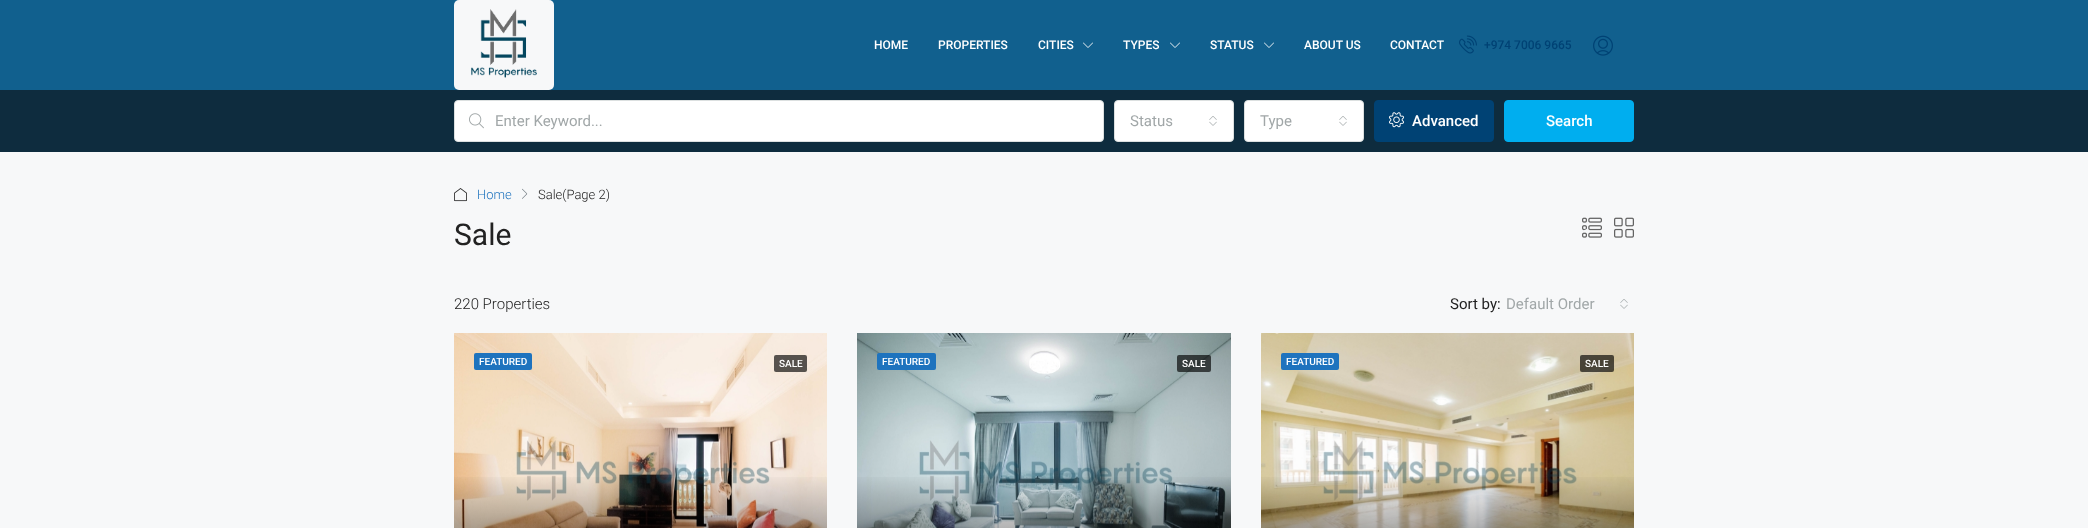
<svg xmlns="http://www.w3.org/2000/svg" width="2088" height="528">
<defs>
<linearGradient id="g1" gradientUnits="userSpaceOnUse" x1="641" y1="333" x2="641" y2="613"><stop offset="0" stop-color="#fff" stop-opacity="0"/><stop offset="0.5" stop-color="#000" stop-opacity="0"/><stop offset="1" stop-color="#000" stop-opacity="0.75"/></linearGradient>
<linearGradient id="g2" gradientUnits="userSpaceOnUse" x1="1044" y1="333" x2="1044" y2="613"><stop offset="0" stop-color="#fff" stop-opacity="0"/><stop offset="0.5" stop-color="#000" stop-opacity="0"/><stop offset="1" stop-color="#000" stop-opacity="0.75"/></linearGradient>
<linearGradient id="g3" gradientUnits="userSpaceOnUse" x1="1448" y1="333" x2="1448" y2="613"><stop offset="0" stop-color="#fff" stop-opacity="0"/><stop offset="0.5" stop-color="#000" stop-opacity="0"/><stop offset="1" stop-color="#000" stop-opacity="0.75"/></linearGradient>
</defs>
<rect width="100%" height="100%" fill="#f7f8f9"/>
<rect width="2088" height="90" fill="#11608e"/>
<rect x="454" width="100" height="90" rx="5" fill="#f7f8f9"/>
<image x="471" y="9" width="66" height="69" href="media/1.png"/>
<text x="874" y="49" style="font-family:Roboto;font-size:12px;font-weight:500;fill:#fff">HOME</text>
<text x="938" y="49" style="font-family:Roboto;font-size:12px;font-weight:500;fill:#fff">PROPERTIES</text>
<text x="1038" y="49" style="font-family:Roboto;font-size:12px;font-weight:500;fill:#fff">CITIES</text>
<image x="1083" y="42" width="10" height="6" href="media/2.png"/>
<text x="1123" y="49" style="font-family:Roboto;font-size:12px;font-weight:500;fill:#fff">TYPES</text>
<image x="1170" y="42" width="10" height="6" href="media/2.png"/>
<text x="1210" y="49" style="font-family:Roboto;font-size:12px;font-weight:500;fill:#fff">STATUS</text>
<image x="1264" y="42" width="10" height="6" href="media/2.png"/>
<text x="1304" y="49" style="font-family:Roboto;font-size:12px;font-weight:500;fill:#fff">ABOUT US</text>
<text x="1390" y="49" style="font-family:Roboto;font-size:12px;font-weight:500;fill:#fff">CONTACT</text>
<image x="1459" y="35" width="18" height="19" href="media/3.png"/>
<text x="1484" y="49" style="font-family:Roboto;font-size:12px;font-weight:500;fill:#004274">+974 7006 9665</text>
<image x="1593" y="35" width="20" height="21" href="media/4.png"/>
<rect y="90" width="2088" height="62" fill="#0e2c3e"/>
<rect x="454.5" y="100.5" width="649" height="41" rx="3.5" fill="#fff" stroke="#dce0e0"/>
<image x="469" y="113" width="15" height="16" href="media/5.png"/>
<text x="495" y="126" style="font-family:Roboto;font-size:15px;fill:#a1a7a8">Enter Keyword...</text>
<rect x="1114.5" y="100.5" width="119" height="41" rx="3.5" fill="#fff" stroke="#dce0e0"/>
<text x="1130" y="126" style="font-family:Roboto;font-size:15px;fill:#a1a7a8">Status</text>
<image x="1209" y="116" width="8" height="10" href="media/6.png"/>
<rect x="1244.5" y="100.5" width="119" height="41" rx="3.5" fill="#fff" stroke="#dce0e0"/>
<text x="1260" y="126" style="font-family:Roboto;font-size:15px;fill:#a1a7a8">Type</text>
<image x="1339" y="116" width="8" height="10" href="media/6.png"/>
<rect x="1374.5" y="100.5" width="119" height="41" rx="3.5" fill="#004274" stroke="#004274"/>
<image x="1389" y="112" width="15" height="16" href="media/7.png"/>
<text x="1412" y="126" style="font-family:Roboto;font-size:15px;font-weight:500;fill:#fff">Advanced</text>
<rect x="1504.5" y="100.5" width="129" height="41" rx="3.5" fill="#00aeef" stroke="#00aeef"/>
<text x="1546" y="126" style="font-family:Roboto;font-size:15px;font-weight:500;fill:#fff">Search</text>
<image x="454" y="188" width="13" height="14" href="media/8.png"/>
<text x="477" y="199" style="font-family:Roboto;font-size:13px;font-weight:300;fill:#1e73be">Home</text>
<image x="522" y="188" width="6" height="11" href="media/9.png"/>
<text x="538" y="199" style="font-family:Roboto;font-size:13px;font-weight:300;fill:#222">Sale(Page 2)</text>
<text x="454" y="245" style="font-family:Roboto;font-size:30px;fill:#222">Sale</text>
<image x="1582" y="217" width="20" height="21" href="media/10.png"/>
<image x="1614" y="217" width="20" height="21" href="media/11.png"/>
<text x="454" y="309" style="font-family:Roboto;font-size:15px;font-weight:300;fill:#222">220 Properties</text>
<text x="1450" y="309" style="font-family:Roboto;font-size:15px;fill:#222">Sort by:</text>
<text x="1506" y="309" style="font-family:Roboto;font-size:15px;fill:#a1a7a8">Default Order</text>
<image x="1620" y="299" width="8" height="10" href="media/12.png"/>
<image x="454" y="333" width="373" height="195" href="media/13.png"/>
<rect x="454" y="477" width="373" height="51" fill="url(#g1)"/>
<rect x="474" y="353" width="58" height="17" rx="2" fill="#1e73be"/>
<text x="479" y="365" style="font-family:Roboto;font-size:10px;font-weight:500;fill:#fff">FEATURED</text>
<rect x="774" y="355" width="33" height="17" rx="2" fill="#000000a6"/>
<text x="779" y="367" style="font-family:Roboto;font-size:10px;font-weight:500;fill:#fff">SALE</text>
<image x="857" y="333" width="374" height="195" href="media/14.png"/>
<rect x="857" y="477" width="374" height="51" fill="url(#g2)"/>
<rect x="877" y="353" width="59" height="17" rx="2" fill="#1e73be"/>
<text x="882" y="365" style="font-family:Roboto;font-size:10px;font-weight:500;fill:#fff">FEATURED</text>
<rect x="1177" y="355" width="34" height="17" rx="2" fill="#000000a6"/>
<text x="1182" y="367" style="font-family:Roboto;font-size:10px;font-weight:500;fill:#fff">SALE</text>
<image x="1261" y="334" width="1" height="194" href="media/16.png"/>
<image x="1261" y="333" width="373" height="195" href="media/15.png"/>
<rect x="1261" y="477" width="373" height="51" fill="url(#g3)"/>
<rect x="1281" y="353" width="58" height="17" rx="2" fill="#1e73be"/>
<text x="1286" y="365" style="font-family:Roboto;font-size:10px;font-weight:500;fill:#fff">FEATURED</text>
<rect x="1580" y="355" width="34" height="17" rx="2" fill="#000000a6"/>
<text x="1585" y="367" style="font-family:Roboto;font-size:10px;font-weight:500;fill:#fff">SALE</text>
</svg>
